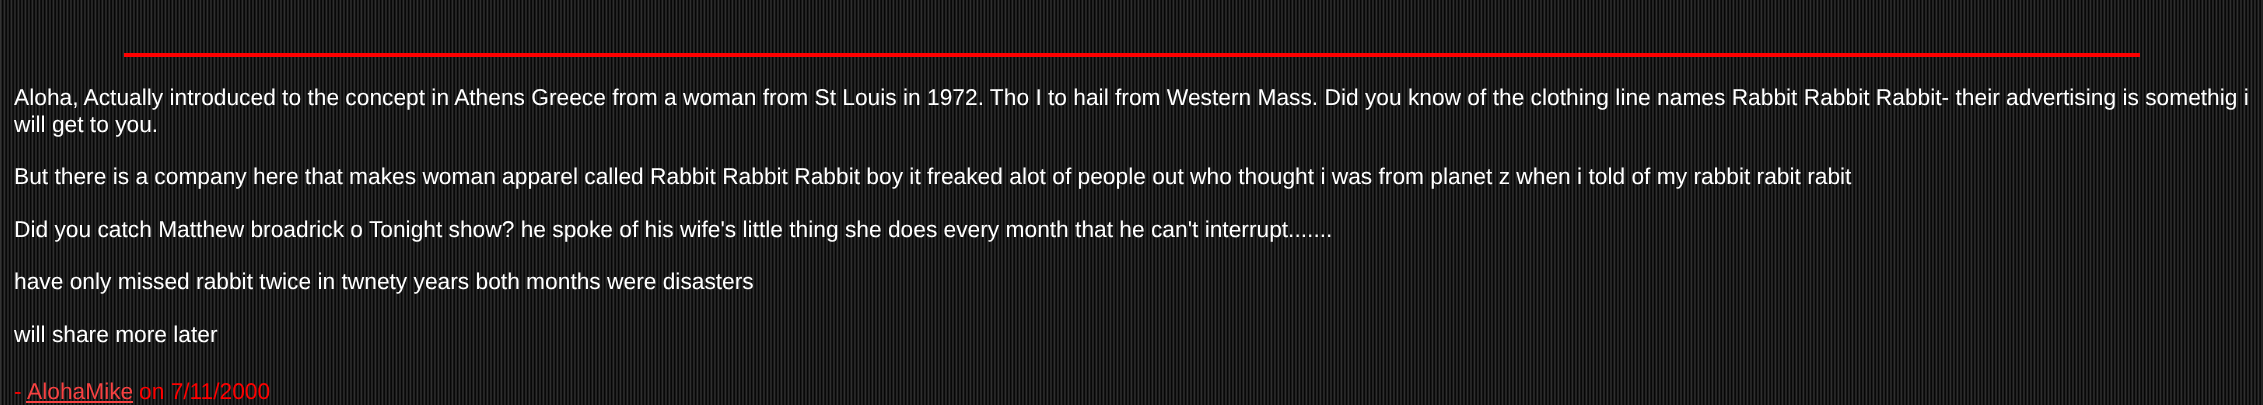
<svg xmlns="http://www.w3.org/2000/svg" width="2263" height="405">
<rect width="100%" height="100%" fill="#fff"/>
<image x="0" y="0" width="2263" height="405" href="media/1.png"/>
<rect x="124" y="53" width="2016" height="4" fill="#f00"/>
<text x="14" y="105" style="font-family:Liberation Sans;font-size:22.75px;fill:#fff">Aloha, Actually introduced to the concept in Athens Greece from a woman from St Louis in 1972. Tho I to hail from Western Mass. Did you know of the clothing line names Rabbit Rabbit Rabbit- their advertising is somethig i</text>
<text x="14" y="132" style="font-family:Liberation Sans;font-size:22.75px;fill:#fff">will get to you.</text>
<text x="14" y="184" style="font-family:Liberation Sans;font-size:22.75px;fill:#fff">But there is a company here that makes woman apparel called Rabbit Rabbit Rabbit boy it freaked alot of people out who thought i was from planet z when i told of my rabbit rabit rabit</text>
<text x="14" y="237" style="font-family:Liberation Sans;font-size:22.75px;fill:#fff">Did you catch Matthew broadrick o Tonight show? he spoke of his wife's little thing she does every month that he can't interrupt.......</text>
<text x="14" y="289" style="font-family:Liberation Sans;font-size:22.75px;fill:#fff">have only missed rabbit twice in twnety years both months were disasters</text>
<text x="14" y="342" style="font-family:Liberation Sans;font-size:22.75px;fill:#fff">will share more later</text>
<text x="14" y="399" style="font-family:Liberation Sans;font-size:22.75px;fill:#f00">-</text>
<text x="27" y="399" style="font-family:Liberation Sans;font-size:22.75px;fill:#f74141">AlohaMike</text>
<rect x="26" y="401" width="107" height="2" fill="#f74141"/>
<text x="139" y="399" style="font-family:Liberation Sans;font-size:22.75px;fill:#f00">on 7/11/2000</text>
</svg>
